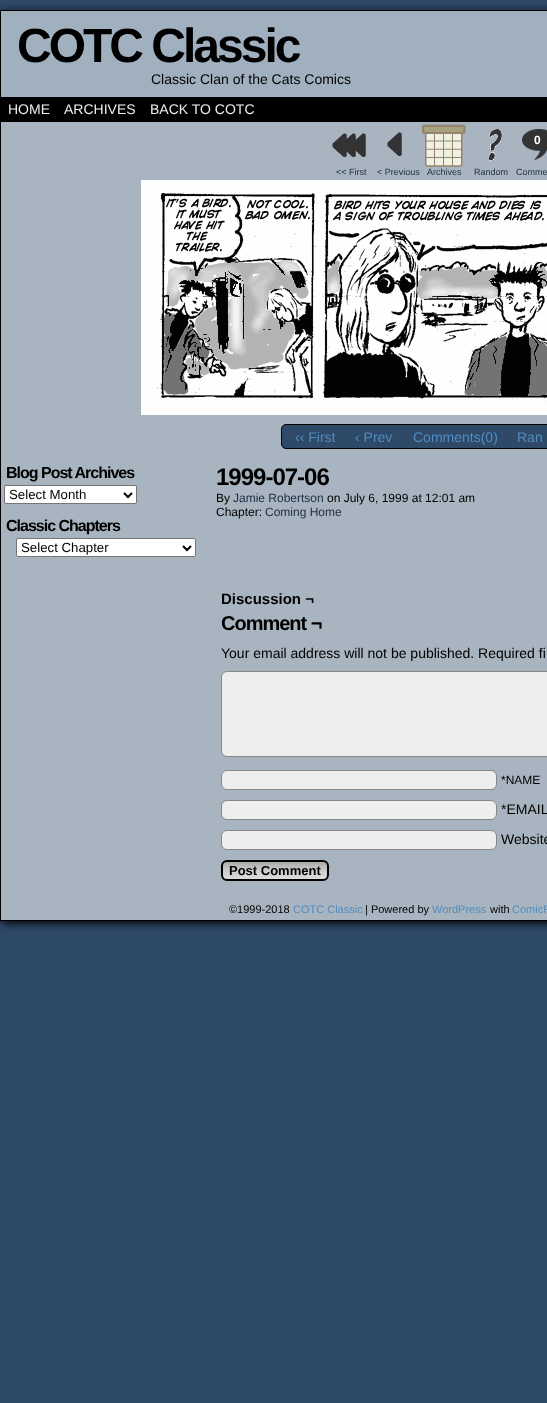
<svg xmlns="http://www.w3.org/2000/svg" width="547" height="1403">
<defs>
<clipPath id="clip1"><rect x="221" y="860" width="108" height="21" rx="6"/></clipPath>
<linearGradient id="g1" gradientUnits="userSpaceOnUse" x1="275" y1="862" x2="275" y2="879"><stop offset="0" stop-color="#aaa"/><stop offset="0.5" stop-color="#ccc"/><stop offset="1" stop-color="#ddd"/></linearGradient>
</defs>
<rect width="100%" height="100%" fill="#2f4968"/>
<rect x="1" y="12" width="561" height="911" fill="#000" filter="blur(5px)"/>
<rect x="1" y="122" width="546" height="798" fill="#a8b4bf"/>
<rect x="0.5" y="10.5" width="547" height="910" fill="none" stroke="#000"/>
<rect x="1" y="11" width="546" height="86" fill="#a0b0bf"/>
<text x="17" y="62" style="font-family:Liberation Sans;font-size:48px;font-weight:bold;letter-spacing:-3px;fill:#000">COTC Classic</text>
<text x="151" y="84" style="font-family:Liberation Sans;font-size:14px;fill:#000">Classic Clan of the Cats Comics</text>
<rect x="1" y="97" width="10" height="25" fill="#000"/>
<text x="8" y="114" style="font-family:Liberation Sans;font-size:14px;fill:#ededed">HOME</text>
<text x="64" y="114" style="font-family:Liberation Sans;font-size:14px;fill:#ededed">ARCHIVES</text>
<text x="150" y="114" style="font-family:Liberation Sans;font-size:14px;fill:#ededed">BACK TO COTC</text>
<image x="332" y="133" width="34" height="24" href="media/1.png"/>
<text x="336" y="175" style="font-family:Liberation Sans;font-size:9px;fill:#1e2e44">&lt;&lt; First</text>
<image x="387" y="132" width="15" height="24" href="media/2.png"/>
<text x="377" y="175" style="font-family:Liberation Sans;font-size:9px;fill:#1e2e44">&lt; Previous</text>
<image x="422" y="124" width="44" height="43" href="media/3.png"/>
<text x="427" y="175" style="font-family:Liberation Sans;font-size:9px;fill:#1e2e44">Archives</text>
<image x="489" y="129" width="13" height="32" href="media/4.png"/>
<text x="474" y="175" style="font-family:Liberation Sans;font-size:9px;fill:#1e2e44">Random</text>
<image x="522" y="129" width="25" height="31" href="media/5.png"/>
<text x="534" y="144" style="font-family:Liberation Sans;font-size:12px;font-weight:bold;fill:#fff">0</text>
<text x="516" y="175" style="font-family:Liberation Sans;font-size:9px;fill:#1e2e44">Comme</text>
<image x="141" y="180" width="406" height="235" href="media/6.png"/>
<rect x="281.5" y="424.5" width="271" height="24" rx="4.5" fill="#2f4968" stroke="#000"/>
<text x="295" y="442" style="font-family:Liberation Sans;font-size:14px;fill:#528cbf">‹‹ First</text>
<text x="355" y="442" style="font-family:Liberation Sans;font-size:14px;fill:#528cbf">‹ Prev</text>
<text x="413" y="442" style="font-family:Liberation Sans;font-size:14px;fill:#528cbf">Comments(0)</text>
<text x="517" y="442" style="font-family:Liberation Sans;font-size:14px;fill:#528cbf">Ran</text>
<text x="6" y="478" style="font-family:Liberation Sans;font-size:16px;font-weight:bold;letter-spacing:-1px;fill:#000">Blog Post Archives</text>
<rect x="4.5" y="485.5" width="132" height="18" rx="1.5" fill="#fff" stroke="#767676"/>
<path d="M124 493l4 4l4-4" fill="none" stroke="#000" stroke-width="2"/>
<text x="9" y="499" style="font-family:Liberation Sans;font-size:13.25px;fill:#000">Select Month</text>
<text x="6" y="531" style="font-family:Liberation Sans;font-size:16px;font-weight:bold;letter-spacing:-1px;fill:#000">Classic Chapters</text>
<rect x="16.5" y="538.5" width="179" height="18" rx="1.5" fill="#fff" stroke="#767676"/>
<path d="M183 546l4 4l4-4" fill="none" stroke="#000" stroke-width="2"/>
<text x="21" y="552" style="font-family:Liberation Sans;font-size:13.25px;fill:#000">Select Chapter</text>
<text x="216" y="485" style="font-family:Liberation Sans;font-size:24px;font-weight:bold;letter-spacing:-1px;fill:#000">1999-07-06</text>
<text x="216" y="502" style="font-family:Liberation Sans;font-size:12px;fill:#000">By</text>
<text x="233" y="502" style="font-family:Liberation Sans;font-size:12px;fill:#1e2e44">Jamie Robertson</text>
<text x="327" y="502" style="font-family:Liberation Sans;font-size:12px;fill:#000">on July 6, 1999 at 12:01 am</text>
<text x="216" y="516" style="font-family:Liberation Sans;font-size:12px;fill:#000">Chapter:</text>
<text x="265" y="516" style="font-family:Liberation Sans;font-size:12px;fill:#1e2e44">Coming Home</text>
<text x="221" y="604" style="font-family:Liberation Sans;font-size:15px;font-weight:bold;fill:#000">Discussion ¬</text>
<text x="221" y="630" style="font-family:Liberation Sans;font-size:20px;font-weight:bold;letter-spacing:-1px;fill:#000">Comment ¬</text>
<text x="221" y="658" style="font-family:Liberation Sans;font-size:14px;fill:#000">Your email address will not be published. Required fi</text>
<rect x="221.5" y="671.5" width="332" height="85" rx="5.5" fill="#eee" stroke="#888"/>
<rect x="221.5" y="770.5" width="275" height="19" rx="5.5" fill="#eee" stroke="#888"/>
<text x="501" y="784" style="font-family:Liberation Sans;font-size:12px;fill:#000">*NAME</text>
<rect x="221.5" y="800.5" width="275" height="19" rx="5.5" fill="#eee" stroke="#888"/>
<text x="501" y="814" style="font-family:Liberation Sans;font-size:14px;fill:#000">*EMAIL</text>
<rect x="221.5" y="830.5" width="275" height="19" rx="5.5" fill="#eee" stroke="#888"/>
<text x="501" y="844" style="font-family:Liberation Sans;font-size:14px;fill:#000">Website</text>
<g clip-path="url(#clip1)">
<rect x="221" y="862" width="108" height="17" fill="url(#g1)"/>
</g>
<rect x="222" y="861" width="106" height="19" rx="5" fill="none" stroke="#000" stroke-width="2"/>
<text x="229" y="875" style="font-family:Liberation Sans;font-size:13px;font-weight:bold;fill:#000">Post Comment</text>
<text x="229" y="913" style="font-family:Liberation Sans;font-size:11px;fill:#000">©1999-2018</text>
<text x="293" y="913" style="font-family:Liberation Sans;font-size:11px;fill:#528cbf">COTC Classic</text>
<text x="365" y="913" style="font-family:Liberation Sans;font-size:11px;fill:#000">| Powered by</text>
<text x="432" y="913" style="font-family:Liberation Sans;font-size:11px;fill:#528cbf">WordPress</text>
<text x="490" y="913" style="font-family:Liberation Sans;font-size:11px;fill:#000">with</text>
<text x="512" y="913" style="font-family:Liberation Sans;font-size:11px;fill:#528cbf">ComicP</text>
</svg>
